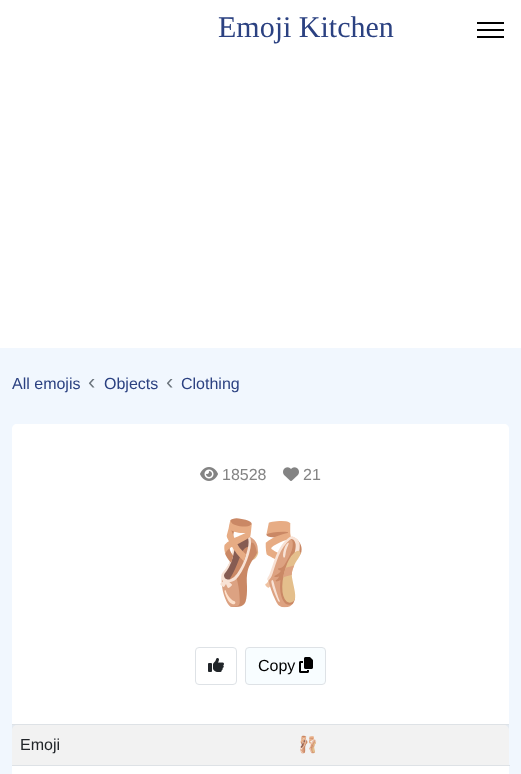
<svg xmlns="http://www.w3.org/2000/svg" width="521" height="774">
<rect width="100%" height="100%" fill="#f1f7fe"/>
<rect width="521" height="348" fill="#fff"/>
<text x="218" y="37" style="font-family:Liberation Serif;font-size:30px;fill:#2b4181">Emoji Kitchen</text>
<rect x="477" y="29" width="27" height="2" fill="#000"/>
<rect x="477" y="22" width="27" height="2" fill="#000"/>
<rect x="477" y="36" width="27" height="2" fill="#000"/>
<text x="12" y="389" style="font-family:Liberation Sans;font-size:16px;fill:#2b4181">All emojis</text>
<text x="88" y="389" style="font-family:Liberation Sans;font-size:22px;fill:#6c757d">‹</text>
<text x="104" y="389" style="font-family:Liberation Sans;font-size:16px;fill:#2b4181">Objects</text>
<text x="166" y="389" style="font-family:Liberation Sans;font-size:22px;fill:#6c757d">‹</text>
<text x="181" y="389" style="font-family:Liberation Sans;font-size:16px;fill:#2b4181">Clothing</text>
<path d="M17 424h487c3 0 5 2 5 5v295h-497v-295c0-3 2-5 5-5z" fill="#fff"/>
<image x="200" y="467" width="18" height="14" href="media/1.png"/>
<text x="222" y="480" style="font-family:Liberation Sans;font-size:16px;fill:#838383">18528</text>
<image x="283" y="467" width="16" height="14" href="media/2.png"/>
<text x="303" y="480" style="font-family:Liberation Sans;font-size:16px;fill:#838383">21</text>
<text x="211" y="590" style="font-family:Noto Color Emoji;font-size:80px;fill:#333">🩰</text>
<rect x="195.5" y="647.5" width="41" height="37" rx="3.5" fill="none" stroke="#dee2e6"/>
<image x="208" y="658" width="16" height="14" href="media/3.png"/>
<rect x="245.5" y="647.5" width="80" height="37" rx="3.5" fill="#f8fdff" stroke="#dee2e6"/>
<text x="258" y="671" style="font-family:Liberation Sans;font-size:16px;fill:#000">Copy</text>
<image x="299" y="657" width="14" height="16" href="media/4.png"/>
<rect x="12" y="724" width="497" height="1" fill="#dee2e6"/>
<rect x="12" y="725" width="497" height="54" rx="5" fill="#fff"/>
<rect x="12" y="725" width="278" height="40" fill="#0000000d"/>
<text x="20" y="750" style="font-family:Liberation Sans;font-size:16px;fill:#212529">Emoji</text>
<rect x="290" y="725" width="219" height="40" fill="#0000000d"/>
<rect x="12" y="765" width="498" height="1" fill="#dee2e6"/>
<text x="298" y="750" style="font-family:Noto Color Emoji;font-size:16px;fill:#212529">🩰</text>
</svg>
